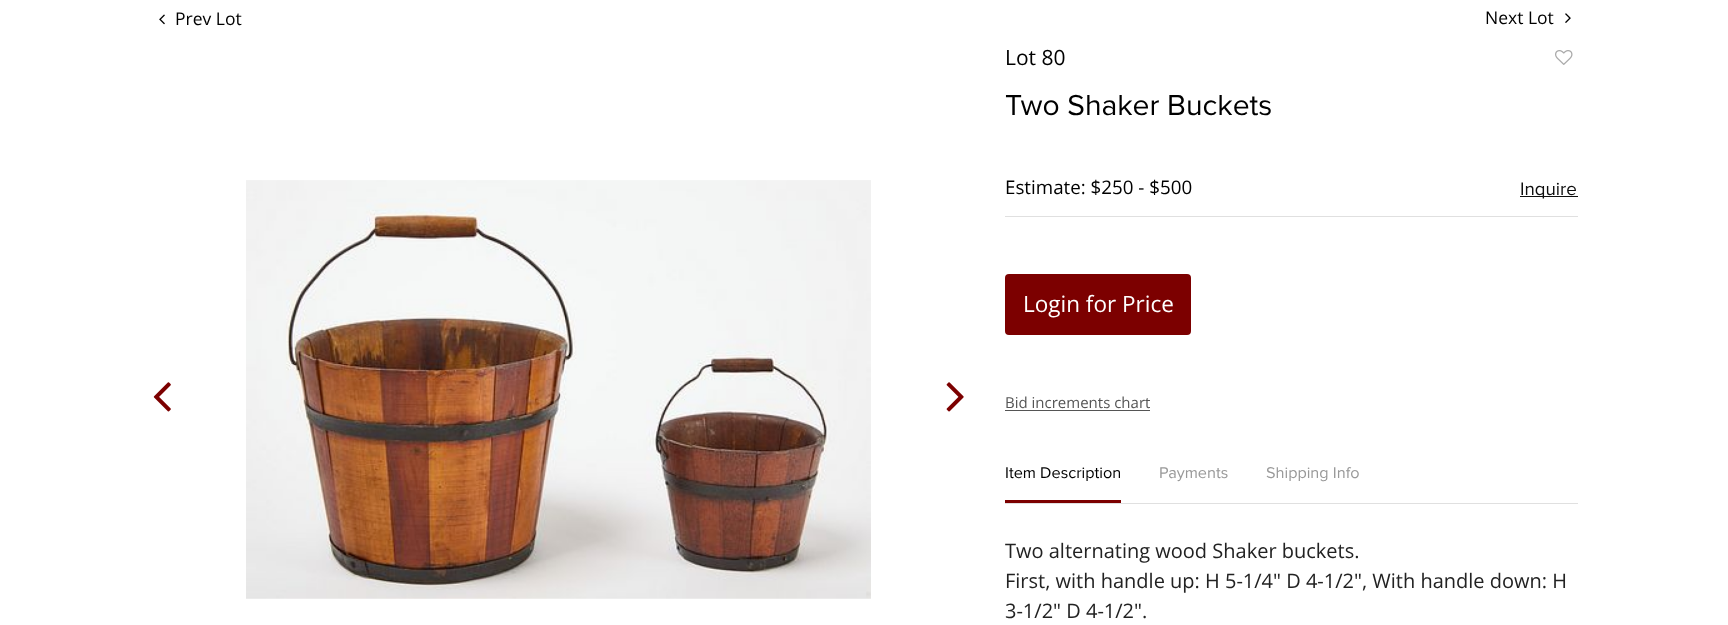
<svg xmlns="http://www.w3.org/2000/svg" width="1728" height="625">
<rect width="100%" height="100%" fill="#fff"/>
<image x="159" y="14" width="6" height="11" href="media/1.png"/>
<text x="175" y="25" style="font-family:Open Sans;font-size:17.5px;fill:#000">Prev Lot</text>
<text x="1485" y="24" style="font-family:Open Sans;font-size:17.5px;fill:#000">Next Lot</text>
<image x="1565" y="13" width="6" height="10" href="media/2.png"/>
<image x="153" y="382" width="18" height="30" href="media/3.png"/>
<image x="246" y="180" width="625" height="419" href="media/4.png"/>
<image x="946" y="382" width="18" height="30" href="media/5.png"/>
<text x="1005" y="65" style="font-family:Open Sans;font-size:21px;fill:#000">Lot 80</text>
<image x="1555" y="50" width="18" height="15" href="media/6.png"/>
<text x="1005" y="115" style="font-family:Proxima Nova;font-size:30px;fill:#000">Two Shaker Buckets</text>
<rect x="1005" y="216" width="573" height="1" fill="#e0e0e0"/>
<text x="1005" y="194" style="font-family:Open Sans;font-size:18.75px;fill:#000">Estimate: $250 - $500</text>
<rect x="1520" y="196" width="58" height="1" fill="#0e0e0e"/>
<text x="1520" y="195" style="font-family:Proxima Nova;font-size:18.75px;fill:#0e0e0e">Inquire</text>
<rect x="1005" y="274" width="186" height="61" rx="4" fill="#7c0000"/>
<text x="1023" y="312" style="font-family:Open Sans;font-size:22.5px;fill:#fff">Login for Price</text>
<text x="1005" y="408" style="font-family:Open Sans;font-size:15px;fill:#555">Bid increments chart</text>
<rect x="1005" y="410" width="145" height="1" fill="#555"/>
<rect x="1005" y="503" width="573" height="1" fill="#e0e0e0"/>
<text x="1005" y="478" style="font-family:Proxima Nova;font-size:16.25px;fill:#000">Item Description</text>
<rect x="1005" y="500" width="116" height="3" fill="#7c0000"/>
<text x="1159" y="478" style="font-family:Proxima Nova;font-size:16.25px;fill:#999">Payments</text>
<text x="1266" y="478" style="font-family:Proxima Nova;font-size:16.25px;fill:#999">Shipping Info</text>
<text x="1005" y="558" style="font-family:Open Sans;font-size:20px;fill:#222">Two alternating wood Shaker buckets.</text>
<text x="1005" y="588" style="font-family:Open Sans;font-size:20px;fill:#222">First, with handle up: H 5-1/4" D 4-1/2", With handle down: H</text>
<text x="1005" y="618" style="font-family:Open Sans;font-size:20px;fill:#222">3-1/2" D 4-1/2".</text>
</svg>
